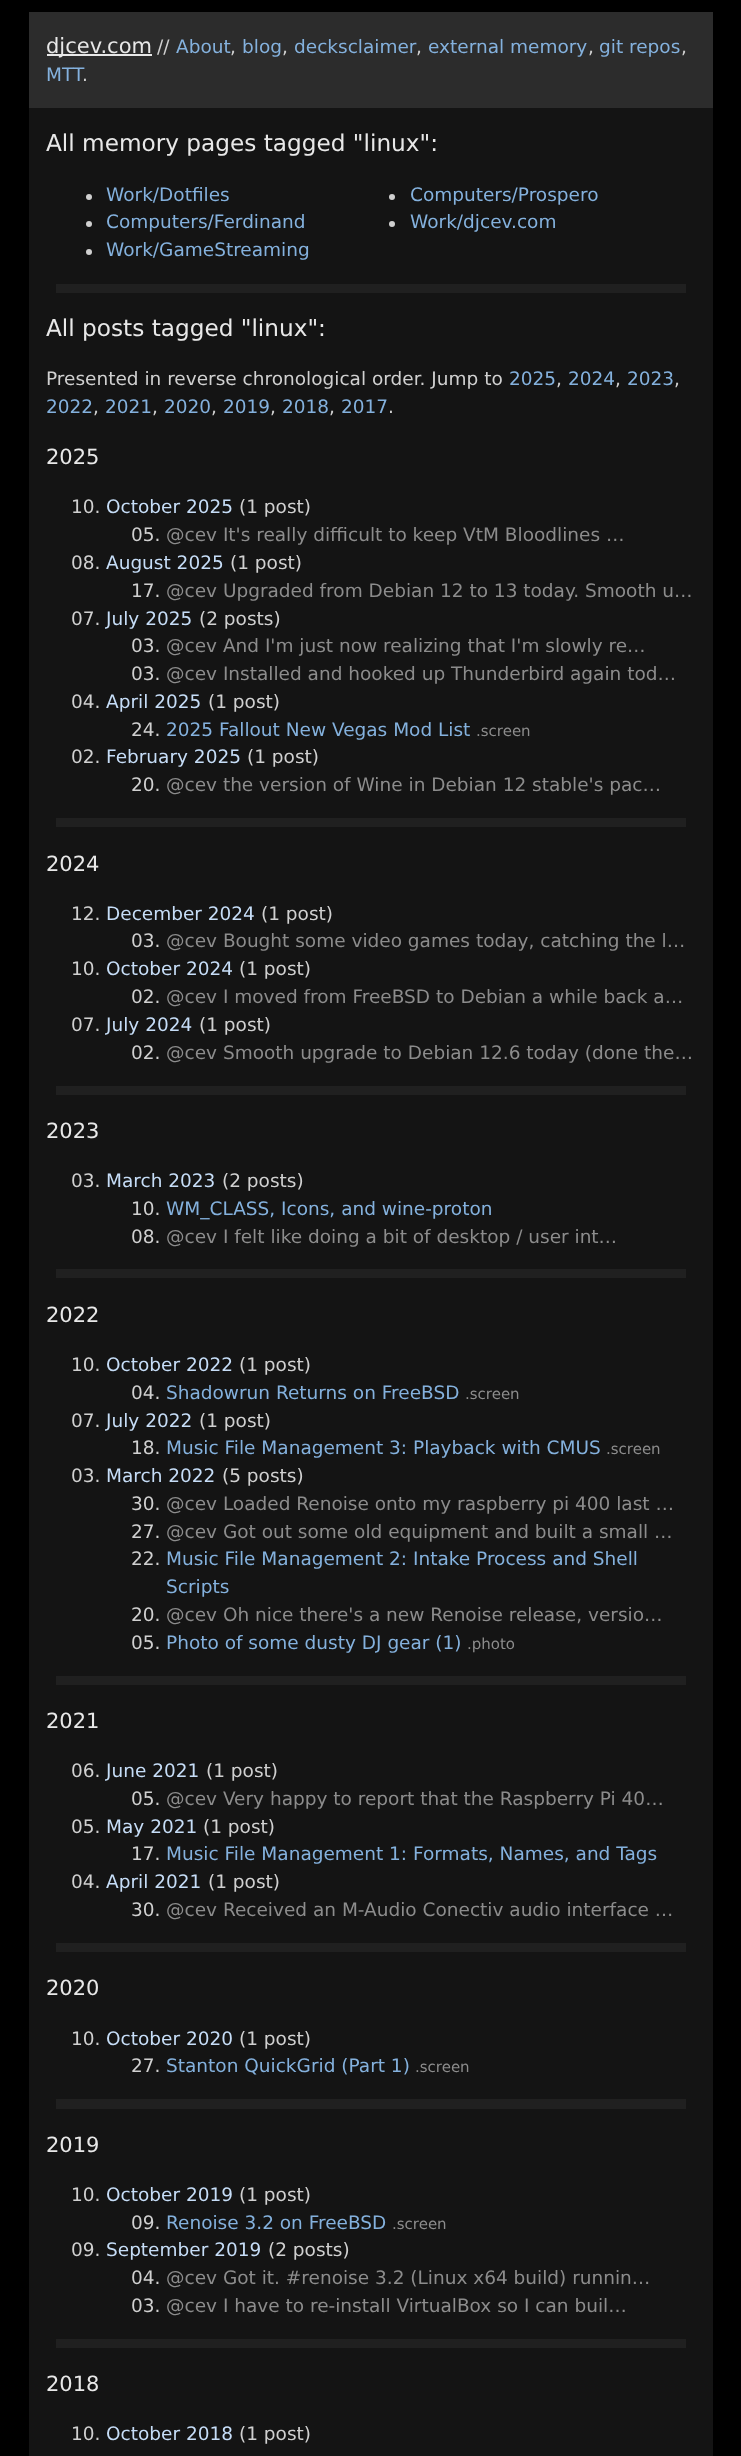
<svg xmlns="http://www.w3.org/2000/svg" width="741" height="2456">
<rect width="100%" height="100%" fill="#000"/>
<rect x="29" y="108" width="684" height="2348" fill="#141414"/>
<rect x="29" y="12" width="684" height="96" fill="#2c2c2c"/>
<rect x="47" y="54" width="105" height="2" fill="#e8e8e8"/>
<text x="46" y="53" style="font-family:DejaVu Sans;font-size:21px;fill:#e8e8e8">djcev.com</text>
<text x="157" y="53" style="font-family:DejaVu Sans;font-size:18.5px;fill:#d0d0d0">//</text>
<text x="176" y="53" style="font-family:DejaVu Sans;font-size:18.5px;fill:#84b1dd">About</text>
<text x="230" y="53" style="font-family:DejaVu Sans;font-size:18.5px;fill:#d0d0d0">,</text>
<text x="242" y="53" style="font-family:DejaVu Sans;font-size:18.5px;fill:#84b1dd">blog</text>
<text x="282" y="53" style="font-family:DejaVu Sans;font-size:18.5px;fill:#d0d0d0">,</text>
<text x="294" y="53" style="font-family:DejaVu Sans;font-size:18.5px;fill:#84b1dd">decksclaimer</text>
<text x="416" y="53" style="font-family:DejaVu Sans;font-size:18.5px;fill:#d0d0d0">,</text>
<text x="428" y="53" style="font-family:DejaVu Sans;font-size:18.5px;fill:#84b1dd">external memory</text>
<text x="588" y="53" style="font-family:DejaVu Sans;font-size:18.5px;fill:#d0d0d0">,</text>
<text x="599" y="53" style="font-family:DejaVu Sans;font-size:18.5px;fill:#84b1dd">git repos</text>
<text x="681" y="53" style="font-family:DejaVu Sans;font-size:18.5px;fill:#d0d0d0">,</text>
<text x="46" y="81" style="font-family:DejaVu Sans;font-size:18.5px;fill:#84b1dd">MTT</text>
<text x="82" y="81" style="font-family:DejaVu Sans;font-size:18.5px;fill:#d0d0d0">.</text>
<text x="46" y="151" style="font-family:DejaVu Sans;font-size:23.2px;fill:#e8e8e8">All memory pages tagged "linux":</text>
<circle cx="89" cy="197" r="3" fill="#d0d0d0"/>
<text x="106" y="201" style="font-family:DejaVu Sans;font-size:18.5px;fill:#84b1dd">Work/Dotfiles</text>
<circle cx="392" cy="197" r="3" fill="#d0d0d0"/>
<text x="410" y="201" style="font-family:DejaVu Sans;font-size:18.5px;fill:#84b1dd">Computers/Prospero</text>
<circle cx="89" cy="224" r="3" fill="#d0d0d0"/>
<text x="106" y="228" style="font-family:DejaVu Sans;font-size:18.5px;fill:#84b1dd">Computers/Ferdinand</text>
<circle cx="392" cy="224" r="3" fill="#d0d0d0"/>
<text x="410" y="228" style="font-family:DejaVu Sans;font-size:18.5px;fill:#84b1dd">Work/djcev.com</text>
<circle cx="89" cy="252" r="3" fill="#d0d0d0"/>
<text x="106" y="256" style="font-family:DejaVu Sans;font-size:18.5px;fill:#84b1dd">Work/GameStreaming</text>
<rect x="56" y="284" width="630" height="9" fill="#202020"/>
<text x="46" y="336" style="font-family:DejaVu Sans;font-size:23.2px;fill:#e8e8e8">All posts tagged "linux":</text>
<text x="46" y="385" style="font-family:DejaVu Sans;font-size:18.5px;fill:#d0d0d0">Presented in reverse chronological order. Jump to</text>
<text x="509" y="385" style="font-family:DejaVu Sans;font-size:18.5px;fill:#84b1dd">2025</text>
<text x="556" y="385" style="font-family:DejaVu Sans;font-size:18.5px;fill:#d0d0d0">,</text>
<text x="568" y="385" style="font-family:DejaVu Sans;font-size:18.5px;fill:#84b1dd">2024</text>
<text x="615" y="385" style="font-family:DejaVu Sans;font-size:18.5px;fill:#d0d0d0">,</text>
<text x="627" y="385" style="font-family:DejaVu Sans;font-size:18.5px;fill:#84b1dd">2023</text>
<text x="674" y="385" style="font-family:DejaVu Sans;font-size:18.5px;fill:#d0d0d0">,</text>
<text x="46" y="413" style="font-family:DejaVu Sans;font-size:18.5px;fill:#84b1dd">2022</text>
<text x="93" y="413" style="font-family:DejaVu Sans;font-size:18.5px;fill:#d0d0d0">,</text>
<text x="105" y="413" style="font-family:DejaVu Sans;font-size:18.5px;fill:#84b1dd">2021</text>
<text x="152" y="413" style="font-family:DejaVu Sans;font-size:18.5px;fill:#d0d0d0">,</text>
<text x="164" y="413" style="font-family:DejaVu Sans;font-size:18.5px;fill:#84b1dd">2020</text>
<text x="211" y="413" style="font-family:DejaVu Sans;font-size:18.5px;fill:#d0d0d0">,</text>
<text x="223" y="413" style="font-family:DejaVu Sans;font-size:18.5px;fill:#84b1dd">2019</text>
<text x="270" y="413" style="font-family:DejaVu Sans;font-size:18.5px;fill:#d0d0d0">,</text>
<text x="282" y="413" style="font-family:DejaVu Sans;font-size:18.5px;fill:#84b1dd">2018</text>
<text x="329" y="413" style="font-family:DejaVu Sans;font-size:18.5px;fill:#d0d0d0">,</text>
<text x="341" y="413" style="font-family:DejaVu Sans;font-size:18.5px;fill:#84b1dd">2017</text>
<text x="388" y="413" style="font-family:DejaVu Sans;font-size:18.5px;fill:#d0d0d0">.</text>
<text x="46" y="464" style="font-family:DejaVu Sans;font-size:21px;fill:#e8e8e8">2025</text>
<text x="71" y="513" style="font-family:DejaVu Sans;font-size:18.5px;fill:#d0d0d0">10.</text>
<text x="106" y="513" style="font-family:DejaVu Sans;font-size:18.5px;fill:#c6ddf7">October 2025</text>
<text x="239" y="513" style="font-family:DejaVu Sans;font-size:18.5px;fill:#d0d0d0">(1 post)</text>
<text x="131" y="541" style="font-family:DejaVu Sans;font-size:18.5px;fill:#d0d0d0">05.</text>
<text x="166" y="541" style="font-family:DejaVu Sans;font-size:18.5px;fill:#8c8c8c">@cev It's really difficult to keep VtM Bloodlines …</text>
<text x="71" y="569" style="font-family:DejaVu Sans;font-size:18.5px;fill:#d0d0d0">08.</text>
<text x="106" y="569" style="font-family:DejaVu Sans;font-size:18.5px;fill:#c6ddf7">August 2025</text>
<text x="230" y="569" style="font-family:DejaVu Sans;font-size:18.5px;fill:#d0d0d0">(1 post)</text>
<text x="131" y="597" style="font-family:DejaVu Sans;font-size:18.5px;fill:#d0d0d0">17.</text>
<text x="166" y="597" style="font-family:DejaVu Sans;font-size:18.5px;fill:#8c8c8c">@cev Upgraded from Debian 12 to 13 today. Smooth u…</text>
<text x="71" y="625" style="font-family:DejaVu Sans;font-size:18.5px;fill:#d0d0d0">07.</text>
<text x="106" y="625" style="font-family:DejaVu Sans;font-size:18.5px;fill:#c6ddf7">July 2025</text>
<text x="199" y="625" style="font-family:DejaVu Sans;font-size:18.5px;fill:#d0d0d0">(2 posts)</text>
<text x="131" y="652" style="font-family:DejaVu Sans;font-size:18.5px;fill:#d0d0d0">03.</text>
<text x="166" y="652" style="font-family:DejaVu Sans;font-size:18.5px;fill:#8c8c8c">@cev And I'm just now realizing that I'm slowly re…</text>
<text x="131" y="680" style="font-family:DejaVu Sans;font-size:18.5px;fill:#d0d0d0">03.</text>
<text x="166" y="680" style="font-family:DejaVu Sans;font-size:18.5px;fill:#8c8c8c">@cev Installed and hooked up Thunderbird again tod…</text>
<text x="71" y="708" style="font-family:DejaVu Sans;font-size:18.5px;fill:#d0d0d0">04.</text>
<text x="106" y="708" style="font-family:DejaVu Sans;font-size:18.5px;fill:#c6ddf7">April 2025</text>
<text x="208" y="708" style="font-family:DejaVu Sans;font-size:18.5px;fill:#d0d0d0">(1 post)</text>
<text x="131" y="736" style="font-family:DejaVu Sans;font-size:18.5px;fill:#d0d0d0">24.</text>
<text x="166" y="736" style="font-family:DejaVu Sans;font-size:18.5px;fill:#84b1dd">2025 Fallout New Vegas Mod List</text>
<text x="476" y="736" style="font-family:DejaVu Sans;font-size:15px;fill:#8c8c8c">.screen</text>
<text x="71" y="763" style="font-family:DejaVu Sans;font-size:18.5px;fill:#d0d0d0">02.</text>
<text x="106" y="763" style="font-family:DejaVu Sans;font-size:18.5px;fill:#c6ddf7">February 2025</text>
<text x="247" y="763" style="font-family:DejaVu Sans;font-size:18.5px;fill:#d0d0d0">(1 post)</text>
<text x="131" y="791" style="font-family:DejaVu Sans;font-size:18.5px;fill:#d0d0d0">20.</text>
<text x="166" y="791" style="font-family:DejaVu Sans;font-size:18.5px;fill:#8c8c8c">@cev the version of Wine in Debian 12 stable's pac…</text>
<rect x="56" y="818" width="630" height="9" fill="#202020"/>
<text x="46" y="871" style="font-family:DejaVu Sans;font-size:21px;fill:#e8e8e8">2024</text>
<text x="71" y="920" style="font-family:DejaVu Sans;font-size:18.5px;fill:#d0d0d0">12.</text>
<text x="106" y="920" style="font-family:DejaVu Sans;font-size:18.5px;fill:#c6ddf7">December 2024</text>
<text x="261" y="920" style="font-family:DejaVu Sans;font-size:18.5px;fill:#d0d0d0">(1 post)</text>
<text x="131" y="947" style="font-family:DejaVu Sans;font-size:18.5px;fill:#d0d0d0">03.</text>
<text x="166" y="947" style="font-family:DejaVu Sans;font-size:18.5px;fill:#8c8c8c">@cev Bought some video games today, catching the l…</text>
<text x="71" y="975" style="font-family:DejaVu Sans;font-size:18.5px;fill:#d0d0d0">10.</text>
<text x="106" y="975" style="font-family:DejaVu Sans;font-size:18.5px;fill:#c6ddf7">October 2024</text>
<text x="239" y="975" style="font-family:DejaVu Sans;font-size:18.5px;fill:#d0d0d0">(1 post)</text>
<text x="131" y="1003" style="font-family:DejaVu Sans;font-size:18.5px;fill:#d0d0d0">02.</text>
<text x="166" y="1003" style="font-family:DejaVu Sans;font-size:18.5px;fill:#8c8c8c">@cev I moved from FreeBSD to Debian a while back a…</text>
<text x="71" y="1031" style="font-family:DejaVu Sans;font-size:18.5px;fill:#d0d0d0">07.</text>
<text x="106" y="1031" style="font-family:DejaVu Sans;font-size:18.5px;fill:#c6ddf7">July 2024</text>
<text x="199" y="1031" style="font-family:DejaVu Sans;font-size:18.5px;fill:#d0d0d0">(1 post)</text>
<text x="131" y="1059" style="font-family:DejaVu Sans;font-size:18.5px;fill:#d0d0d0">02.</text>
<text x="166" y="1059" style="font-family:DejaVu Sans;font-size:18.5px;fill:#8c8c8c">@cev Smooth upgrade to Debian 12.6 today (done the…</text>
<rect x="56" y="1086" width="630" height="9" fill="#202020"/>
<text x="46" y="1138" style="font-family:DejaVu Sans;font-size:21px;fill:#e8e8e8">2023</text>
<text x="71" y="1187" style="font-family:DejaVu Sans;font-size:18.5px;fill:#d0d0d0">03.</text>
<text x="106" y="1187" style="font-family:DejaVu Sans;font-size:18.5px;fill:#c6ddf7">March 2023</text>
<text x="222" y="1187" style="font-family:DejaVu Sans;font-size:18.5px;fill:#d0d0d0">(2 posts)</text>
<text x="131" y="1215" style="font-family:DejaVu Sans;font-size:18.5px;fill:#d0d0d0">10.</text>
<text x="166" y="1215" style="font-family:DejaVu Sans;font-size:18.5px;fill:#84b1dd">WM_CLASS, Icons, and wine-proton</text>
<text x="131" y="1243" style="font-family:DejaVu Sans;font-size:18.5px;fill:#d0d0d0">08.</text>
<text x="166" y="1243" style="font-family:DejaVu Sans;font-size:18.5px;fill:#8c8c8c">@cev I felt like doing a bit of desktop / user int…</text>
<rect x="56" y="1269" width="630" height="9" fill="#202020"/>
<text x="46" y="1322" style="font-family:DejaVu Sans;font-size:21px;fill:#e8e8e8">2022</text>
<text x="71" y="1371" style="font-family:DejaVu Sans;font-size:18.5px;fill:#d0d0d0">10.</text>
<text x="106" y="1371" style="font-family:DejaVu Sans;font-size:18.5px;fill:#c6ddf7">October 2022</text>
<text x="239" y="1371" style="font-family:DejaVu Sans;font-size:18.5px;fill:#d0d0d0">(1 post)</text>
<text x="131" y="1399" style="font-family:DejaVu Sans;font-size:18.5px;fill:#d0d0d0">04.</text>
<text x="166" y="1399" style="font-family:DejaVu Sans;font-size:18.5px;fill:#84b1dd">Shadowrun Returns on FreeBSD</text>
<text x="465" y="1399" style="font-family:DejaVu Sans;font-size:15px;fill:#8c8c8c">.screen</text>
<text x="71" y="1427" style="font-family:DejaVu Sans;font-size:18.5px;fill:#d0d0d0">07.</text>
<text x="106" y="1427" style="font-family:DejaVu Sans;font-size:18.5px;fill:#c6ddf7">July 2022</text>
<text x="199" y="1427" style="font-family:DejaVu Sans;font-size:18.5px;fill:#d0d0d0">(1 post)</text>
<text x="131" y="1454" style="font-family:DejaVu Sans;font-size:18.5px;fill:#d0d0d0">18.</text>
<text x="166" y="1454" style="font-family:DejaVu Sans;font-size:18.5px;fill:#84b1dd">Music File Management 3: Playback with CMUS</text>
<text x="606" y="1454" style="font-family:DejaVu Sans;font-size:15px;fill:#8c8c8c">.screen</text>
<text x="71" y="1482" style="font-family:DejaVu Sans;font-size:18.5px;fill:#d0d0d0">03.</text>
<text x="106" y="1482" style="font-family:DejaVu Sans;font-size:18.5px;fill:#c6ddf7">March 2022</text>
<text x="222" y="1482" style="font-family:DejaVu Sans;font-size:18.5px;fill:#d0d0d0">(5 posts)</text>
<text x="131" y="1510" style="font-family:DejaVu Sans;font-size:18.5px;fill:#d0d0d0">30.</text>
<text x="166" y="1510" style="font-family:DejaVu Sans;font-size:18.5px;fill:#8c8c8c">@cev Loaded Renoise onto my raspberry pi 400 last …</text>
<text x="131" y="1538" style="font-family:DejaVu Sans;font-size:18.5px;fill:#d0d0d0">27.</text>
<text x="166" y="1538" style="font-family:DejaVu Sans;font-size:18.5px;fill:#8c8c8c">@cev Got out some old equipment and built a small …</text>
<text x="131" y="1565" style="font-family:DejaVu Sans;font-size:18.5px;fill:#d0d0d0">22.</text>
<text x="166" y="1565" style="font-family:DejaVu Sans;font-size:18.5px;fill:#84b1dd">Music File Management 2: Intake Process and Shell</text>
<text x="166" y="1593" style="font-family:DejaVu Sans;font-size:18.5px;fill:#84b1dd">Scripts</text>
<text x="131" y="1621" style="font-family:DejaVu Sans;font-size:18.5px;fill:#d0d0d0">20.</text>
<text x="166" y="1621" style="font-family:DejaVu Sans;font-size:18.5px;fill:#8c8c8c">@cev Oh nice there's a new Renoise release, versio…</text>
<text x="131" y="1649" style="font-family:DejaVu Sans;font-size:18.5px;fill:#d0d0d0">05.</text>
<text x="166" y="1649" style="font-family:DejaVu Sans;font-size:18.5px;fill:#84b1dd">Photo of some dusty DJ gear (1)</text>
<text x="467" y="1649" style="font-family:DejaVu Sans;font-size:15px;fill:#8c8c8c">.photo</text>
<rect x="56" y="1676" width="630" height="9" fill="#202020"/>
<text x="46" y="1728" style="font-family:DejaVu Sans;font-size:21px;fill:#e8e8e8">2021</text>
<text x="71" y="1777" style="font-family:DejaVu Sans;font-size:18.5px;fill:#d0d0d0">06.</text>
<text x="106" y="1777" style="font-family:DejaVu Sans;font-size:18.5px;fill:#c6ddf7">June 2021</text>
<text x="206" y="1777" style="font-family:DejaVu Sans;font-size:18.5px;fill:#d0d0d0">(1 post)</text>
<text x="131" y="1805" style="font-family:DejaVu Sans;font-size:18.5px;fill:#d0d0d0">05.</text>
<text x="166" y="1805" style="font-family:DejaVu Sans;font-size:18.5px;fill:#8c8c8c">@cev Very happy to report that the Raspberry Pi 40…</text>
<text x="71" y="1833" style="font-family:DejaVu Sans;font-size:18.5px;fill:#d0d0d0">05.</text>
<text x="106" y="1833" style="font-family:DejaVu Sans;font-size:18.5px;fill:#c6ddf7">May 2021</text>
<text x="203" y="1833" style="font-family:DejaVu Sans;font-size:18.5px;fill:#d0d0d0">(1 post)</text>
<text x="131" y="1860" style="font-family:DejaVu Sans;font-size:18.5px;fill:#d0d0d0">17.</text>
<text x="166" y="1860" style="font-family:DejaVu Sans;font-size:18.5px;fill:#84b1dd">Music File Management 1: Formats, Names, and Tags</text>
<text x="71" y="1888" style="font-family:DejaVu Sans;font-size:18.5px;fill:#d0d0d0">04.</text>
<text x="106" y="1888" style="font-family:DejaVu Sans;font-size:18.5px;fill:#c6ddf7">April 2021</text>
<text x="208" y="1888" style="font-family:DejaVu Sans;font-size:18.5px;fill:#d0d0d0">(1 post)</text>
<text x="131" y="1916" style="font-family:DejaVu Sans;font-size:18.5px;fill:#d0d0d0">30.</text>
<text x="166" y="1916" style="font-family:DejaVu Sans;font-size:18.5px;fill:#8c8c8c">@cev Received an M-Audio Conectiv audio interface …</text>
<rect x="56" y="1943" width="630" height="9" fill="#202020"/>
<text x="46" y="1995" style="font-family:DejaVu Sans;font-size:21px;fill:#e8e8e8">2020</text>
<text x="71" y="2045" style="font-family:DejaVu Sans;font-size:18.5px;fill:#d0d0d0">10.</text>
<text x="106" y="2045" style="font-family:DejaVu Sans;font-size:18.5px;fill:#c6ddf7">October 2020</text>
<text x="239" y="2045" style="font-family:DejaVu Sans;font-size:18.5px;fill:#d0d0d0">(1 post)</text>
<text x="131" y="2072" style="font-family:DejaVu Sans;font-size:18.5px;fill:#d0d0d0">27.</text>
<text x="166" y="2072" style="font-family:DejaVu Sans;font-size:18.5px;fill:#84b1dd">Stanton QuickGrid (Part 1)</text>
<text x="415" y="2072" style="font-family:DejaVu Sans;font-size:15px;fill:#8c8c8c">.screen</text>
<rect x="56" y="2099" width="630" height="10" fill="#202020"/>
<text x="46" y="2152" style="font-family:DejaVu Sans;font-size:21px;fill:#e8e8e8">2019</text>
<text x="71" y="2201" style="font-family:DejaVu Sans;font-size:18.5px;fill:#d0d0d0">10.</text>
<text x="106" y="2201" style="font-family:DejaVu Sans;font-size:18.5px;fill:#c6ddf7">October 2019</text>
<text x="239" y="2201" style="font-family:DejaVu Sans;font-size:18.5px;fill:#d0d0d0">(1 post)</text>
<text x="131" y="2229" style="font-family:DejaVu Sans;font-size:18.5px;fill:#d0d0d0">09.</text>
<text x="166" y="2229" style="font-family:DejaVu Sans;font-size:18.5px;fill:#84b1dd">Renoise 3.2 on FreeBSD</text>
<text x="392" y="2229" style="font-family:DejaVu Sans;font-size:15px;fill:#8c8c8c">.screen</text>
<text x="71" y="2256" style="font-family:DejaVu Sans;font-size:18.5px;fill:#d0d0d0">09.</text>
<text x="106" y="2256" style="font-family:DejaVu Sans;font-size:18.5px;fill:#c6ddf7">September 2019</text>
<text x="268" y="2256" style="font-family:DejaVu Sans;font-size:18.5px;fill:#d0d0d0">(2 posts)</text>
<text x="131" y="2284" style="font-family:DejaVu Sans;font-size:18.5px;fill:#d0d0d0">04.</text>
<text x="166" y="2284" style="font-family:DejaVu Sans;font-size:18.5px;fill:#8c8c8c">@cev Got it. #renoise 3.2 (Linux x64 build) runnin…</text>
<text x="131" y="2312" style="font-family:DejaVu Sans;font-size:18.5px;fill:#d0d0d0">03.</text>
<text x="166" y="2312" style="font-family:DejaVu Sans;font-size:18.5px;fill:#8c8c8c">@cev I have to re-install VirtualBox so I can buil…</text>
<rect x="56" y="2339" width="630" height="9" fill="#202020"/>
<text x="46" y="2391" style="font-family:DejaVu Sans;font-size:21px;fill:#e8e8e8">2018</text>
<text x="71" y="2440" style="font-family:DejaVu Sans;font-size:18.5px;fill:#d0d0d0">10.</text>
<text x="106" y="2440" style="font-family:DejaVu Sans;font-size:18.5px;fill:#c6ddf7">October 2018</text>
<text x="239" y="2440" style="font-family:DejaVu Sans;font-size:18.5px;fill:#d0d0d0">(1 post)</text>
</svg>
